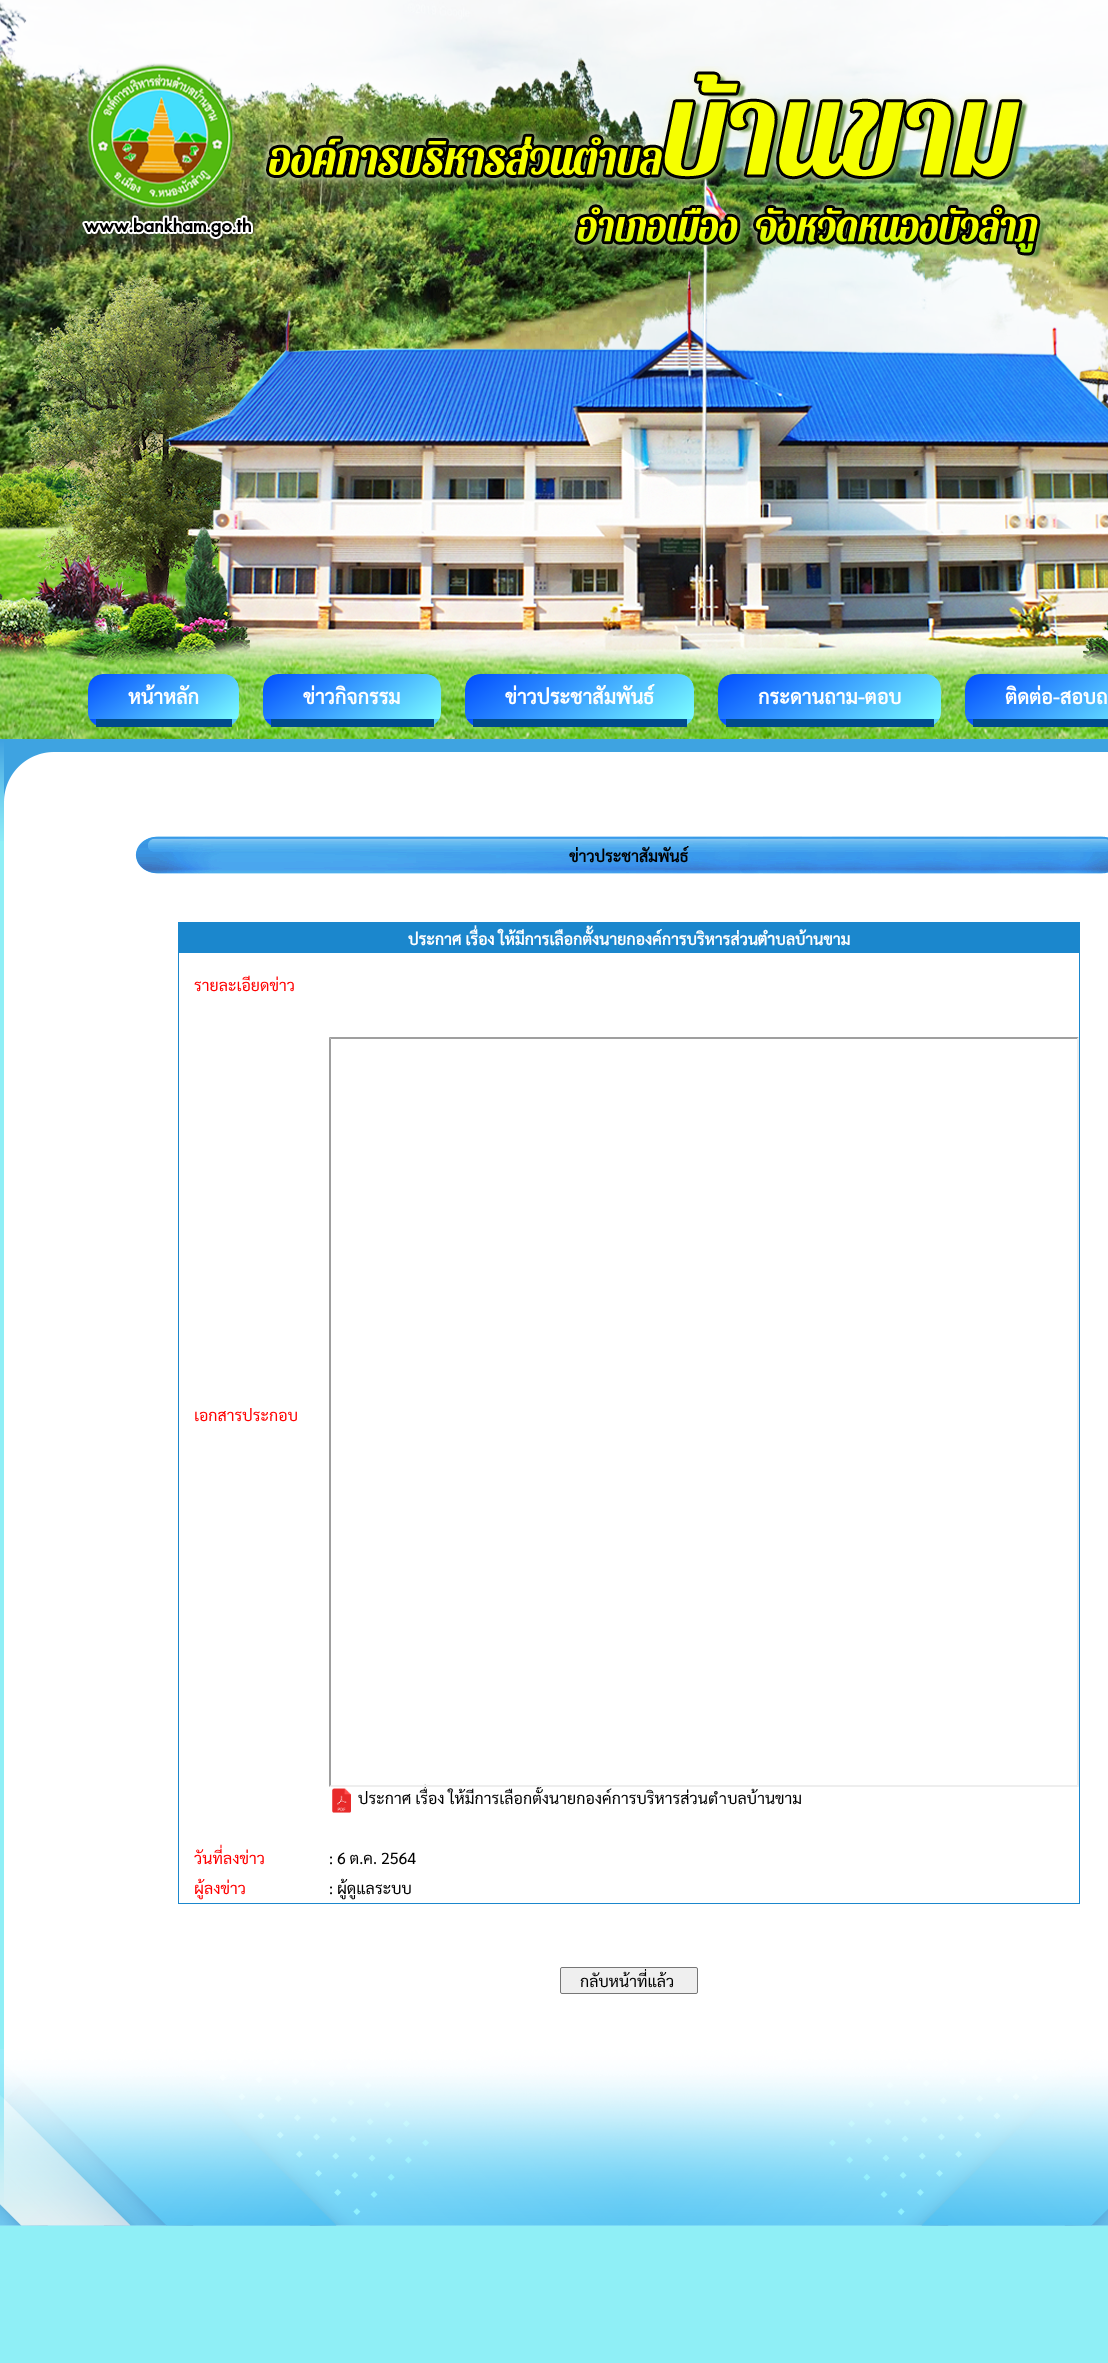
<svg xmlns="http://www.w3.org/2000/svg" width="1108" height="2363">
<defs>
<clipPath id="clip1"><rect x="88" y="674" width="151" height="53" rx="15"/></clipPath>
<linearGradient id="g1" gradientUnits="userSpaceOnUse" x1="128" y1="646" x2="199" y2="747"><stop offset="0" stop-color="#004cff"/><stop offset="1" stop-color="#7bfdff"/></linearGradient>
<linearGradient id="g2" gradientUnits="userSpaceOnUse" x1="128" y1="691" x2="199" y2="792"><stop offset="0" stop-color="#004cff"/><stop offset="1" stop-color="#7bfdff"/></linearGradient>
<clipPath id="clip2"><rect x="263" y="674" width="178" height="53" rx="15"/></clipPath>
<linearGradient id="g3" gradientUnits="userSpaceOnUse" x1="312" y1="640" x2="392" y2="753"><stop offset="0" stop-color="#004cff"/><stop offset="1" stop-color="#7bfdff"/></linearGradient>
<linearGradient id="g4" gradientUnits="userSpaceOnUse" x1="312" y1="685" x2="392" y2="798"><stop offset="0" stop-color="#004cff"/><stop offset="1" stop-color="#7bfdff"/></linearGradient>
<clipPath id="clip3"><rect x="465" y="674" width="229" height="53" rx="15"/></clipPath>
<linearGradient id="g5" gradientUnits="userSpaceOnUse" x1="531" y1="628" x2="628" y2="765"><stop offset="0" stop-color="#004cff"/><stop offset="1" stop-color="#7bfdff"/></linearGradient>
<linearGradient id="g6" gradientUnits="userSpaceOnUse" x1="531" y1="673" x2="628" y2="810"><stop offset="0" stop-color="#004cff"/><stop offset="1" stop-color="#7bfdff"/></linearGradient>
<clipPath id="clip4"><rect x="718" y="674" width="223" height="53" rx="15"/></clipPath>
<linearGradient id="g7" gradientUnits="userSpaceOnUse" x1="782" y1="629" x2="877" y2="764"><stop offset="0" stop-color="#004cff"/><stop offset="1" stop-color="#7bfdff"/></linearGradient>
<linearGradient id="g8" gradientUnits="userSpaceOnUse" x1="782" y1="674" x2="877" y2="809"><stop offset="0" stop-color="#004cff"/><stop offset="1" stop-color="#7bfdff"/></linearGradient>
<clipPath id="clip5"><rect x="965" y="674" width="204" height="53" rx="15"/></clipPath>
<linearGradient id="g9" gradientUnits="userSpaceOnUse" x1="1023" y1="633" x2="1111" y2="760"><stop offset="0" stop-color="#004cff"/><stop offset="1" stop-color="#7bfdff"/></linearGradient>
<linearGradient id="g10" gradientUnits="userSpaceOnUse" x1="1023" y1="678" x2="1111" y2="805"><stop offset="0" stop-color="#004cff"/><stop offset="1" stop-color="#7bfdff"/></linearGradient>
<clipPath id="clip6"><rect x="562" y="1969" width="134" height="23"/></clipPath>
</defs>
<rect width="100%" height="100%" fill="#8feff6"/>
<image x="0" y="0" width="4" height="739" href="media/1.png"/>
<image x="4" y="0" width="1104" height="739" href="media/2.png"/>
<image x="86" y="63" width="149" height="147" href="media/3.png"/>
<image x="259" y="66" width="789" height="196" href="media/4.png"/>
<g clip-path="url(#clip1)">
<path d="M103 674h121c8.5 0 15 6.5 15 15v30h-151v-30c0-8.5 6.5-15 15-15z" fill="url(#g1)"/>
<rect x="88" y="719" width="151" height="7" fill="url(#g2)"/>
</g>
<rect x="96" y="719" width="136" height="8" fill="#004b8b"/>
<text x="128" y="704" style="font-family:Sarabun;font-size:20px;font-weight:bold;fill:#fff">หน้าหลัก</text>
<g clip-path="url(#clip2)">
<path d="M278 674h148c8.5 0 15 6.5 15 15v30h-178v-30c0-8.5 6.5-15 15-15z" fill="url(#g3)"/>
<rect x="263" y="719" width="178" height="7" fill="url(#g4)"/>
</g>
<rect x="271" y="719" width="163" height="8" fill="#004b8b"/>
<text x="303" y="704" style="font-family:Sarabun;font-size:20px;font-weight:bold;fill:#fff">ข่าวกิจกรรม</text>
<g clip-path="url(#clip3)">
<path d="M480 674h199c8.5 0 15 6.5 15 15v30h-229v-30c0-8.5 6.5-15 15-15z" fill="url(#g5)"/>
<rect x="465" y="719" width="229" height="7" fill="url(#g6)"/>
</g>
<rect x="473" y="719" width="214" height="8" fill="#004b8b"/>
<text x="505" y="704" style="font-family:Sarabun;font-size:20px;font-weight:bold;fill:#fff">ข่าวประชาสัมพันธ์</text>
<g clip-path="url(#clip4)">
<path d="M733 674h193c8.5 0 15 6.5 15 15v30h-223v-30c0-8.5 6.5-15 15-15z" fill="url(#g7)"/>
<rect x="718" y="719" width="223" height="7" fill="url(#g8)"/>
</g>
<rect x="726" y="719" width="208" height="8" fill="#004b8b"/>
<text x="758" y="704" style="font-family:Sarabun;font-size:20px;font-weight:bold;fill:#fff">กระดานถาม-ตอบ</text>
<g clip-path="url(#clip5)">
<path d="M980 674h128c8.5 0 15 6.5 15 15v30h-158v-30c0-8.5 6.5-15 15-15z" fill="url(#g9)"/>
<rect x="965" y="719" width="8" height="7" fill="url(#g10)"/>
</g>
<rect x="973" y="719" width="135" height="8" fill="#004b8b"/>
<text x="1005" y="704" style="font-family:Sarabun;font-size:20px;font-weight:bold;fill:#fff">ติดต่อ-สอบถ</text>
<image x="0" y="739" width="4" height="102" href="media/5.png"/>
<image x="4" y="739" width="1104" height="91" href="media/6.png"/>
<rect x="4" y="830" width="1104" height="1219" fill="#fff"/>
<image x="135" y="836" width="973" height="38" href="media/7.png"/>
<text x="569" y="862" style="font-family:Sarabun;font-size:16px;font-weight:bold;fill:#000">ข่าวประชาสัมพันธ์</text>
<rect x="178" y="922" width="902" height="982" fill="#1b87cd"/>
<text x="408" y="945" style="font-family:Sarabun;font-size:16px;font-weight:bold;fill:#fff">ประกาศ เรื่อง ให้มีการเลือกตั้งนายกองค์การบริหารส่วนตำบลบ้านขาม</text>
<rect x="179" y="953" width="900" height="63" fill="#fff"/>
<text x="194" y="991" style="font-family:Sarabun;font-size:16px;fill:#f00">รายละเอียดข่าว</text>
<rect x="179" y="1016" width="900" height="797" fill="#fff"/>
<text x="194" y="1421" style="font-family:Sarabun;font-size:16px;fill:#f00">เอกสารประกอบ</text>
<path d="M329 1037h750l-2 2h-746z" fill="#9f9f9f"/>
<path d="M1079 1037v750l-2-2v-746z" fill="#eee"/>
<text x="358" y="1804" style="font-family:Sarabun;font-size:16px;fill:#000">ประกาศ เรื่อง ให้มีการเลือกตั้งนายกองค์การบริหารส่วนตำบลบ้านขาม</text>
<path d="M1079 1787h-750l2-2h746z" fill="#eee"/>
<path d="M329 1787v-750l2 2v746z" fill="#9f9f9f"/>
<image x="332" y="1788" width="19" height="25" href="media/8.png"/>
<rect x="179" y="1813" width="900" height="30" fill="#fff"/>
<rect x="179" y="1843" width="900" height="30" fill="#fff"/>
<text x="194" y="1864" style="font-family:Sarabun;font-size:16px;fill:#f00">วันที่ลงข่าว</text>
<text x="329" y="1864" style="font-family:Sarabun;font-size:16px;fill:#000">: 6 ต.ค. 2564</text>
<rect x="179" y="1873" width="900" height="30" fill="#fff"/>
<text x="194" y="1894" style="font-family:Sarabun;font-size:16px;fill:#f00">ผู้ลงข่าว</text>
<text x="329" y="1894" style="font-family:Sarabun;font-size:16px;fill:#000">: ผู้ดูแลระบบ</text>
<rect x="560.5" y="1967.5" width="137" height="26" rx="1.5" fill="#efefef" stroke="#767676"/>
<g clip-path="url(#clip6)">
<text x="580" y="1987" style="font-family:Sarabun;font-size:16px;fill:#000">กลับหน้าที่แล้ว</text>
</g>
<image x="0" y="2049" width="4" height="177" href="media/9.png"/>
<image x="4" y="2049" width="1104" height="177" href="media/10.png"/>
</svg>
